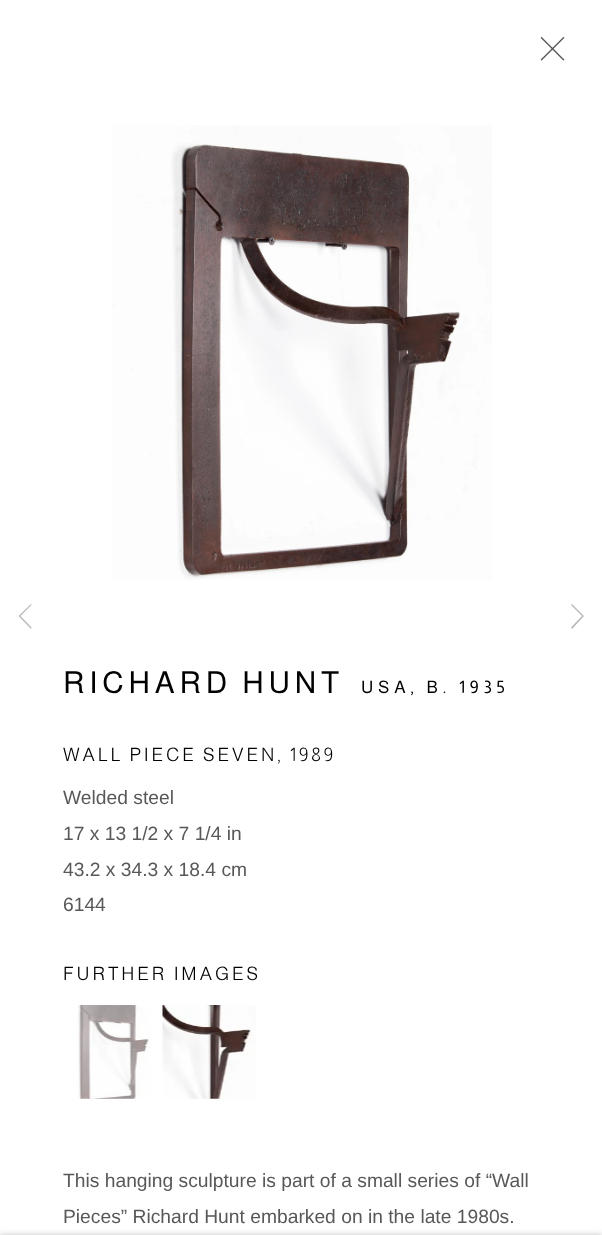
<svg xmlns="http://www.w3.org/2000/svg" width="602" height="1235">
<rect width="100%" height="100%" fill="#fff"/>
<image x="540" y="36" width="25" height="25" href="media/1.png"/>
<path d="M19.5 617l11.5 12l.5-1.5l-11-11.5l11-11l-.5-1l-12.5 12z" fill="#b9b9b9"/>
<path d="M584 616l-12-12l-1 1l11 11l-11 11.5l1 1.5z" fill="#b9b9b9"/>
<image x="112" y="125" width="380" height="455" href="media/2.png"/>
<text x="63" y="693" style="font-family:Almarai;font-size:30.25px;letter-spacing:4.8px;fill:#010101">RICHARD HUNT</text>
<text x="361" y="693" style="font-family:Almarai;font-size:17.25px;letter-spacing:4.8px;fill:#010101">USA, B. 1935</text>
<text x="63" y="761" style="font-family:Almarai;font-size:18.5px;font-weight:300;letter-spacing:3px;fill:#010101">WALL PIECE SEVEN, 1989</text>
<text x="63" y="804" style="font-family:Liberation Sans;font-size:19.25px;fill:#585858">Welded steel</text>
<text x="63" y="840" style="font-family:Liberation Sans;font-size:19.25px;fill:#585858">17 x 13 1/2 x 7 1/4 in</text>
<text x="63" y="876" style="font-family:Liberation Sans;font-size:19.25px;fill:#585858">43.2 x 34.3 x 18.4 cm</text>
<text x="63" y="911" style="font-family:Liberation Sans;font-size:19.25px;fill:#585858">6144</text>
<text x="63" y="980" style="font-family:Almarai;font-size:18.5px;font-weight:300;letter-spacing:3px;fill:#010101">FURTHER IMAGES</text>
<image x="77" y="1005" width="74" height="94" href="media/3.png"/>
<image x="162" y="1005" width="94" height="94" href="media/4.png"/>
<text x="63" y="1187" style="font-family:Liberation Sans;font-size:19.25px;fill:#585858">This hanging sculpture is part of a small series of “Wall</text>
<text x="63" y="1223" style="font-family:Liberation Sans;font-size:19.25px;fill:#585858">Pieces” Richard Hunt embarked on in the late 1980s.</text>
<rect y="1235" width="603" height="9" fill="#0000003b" filter="blur(3px)"/>
</svg>
